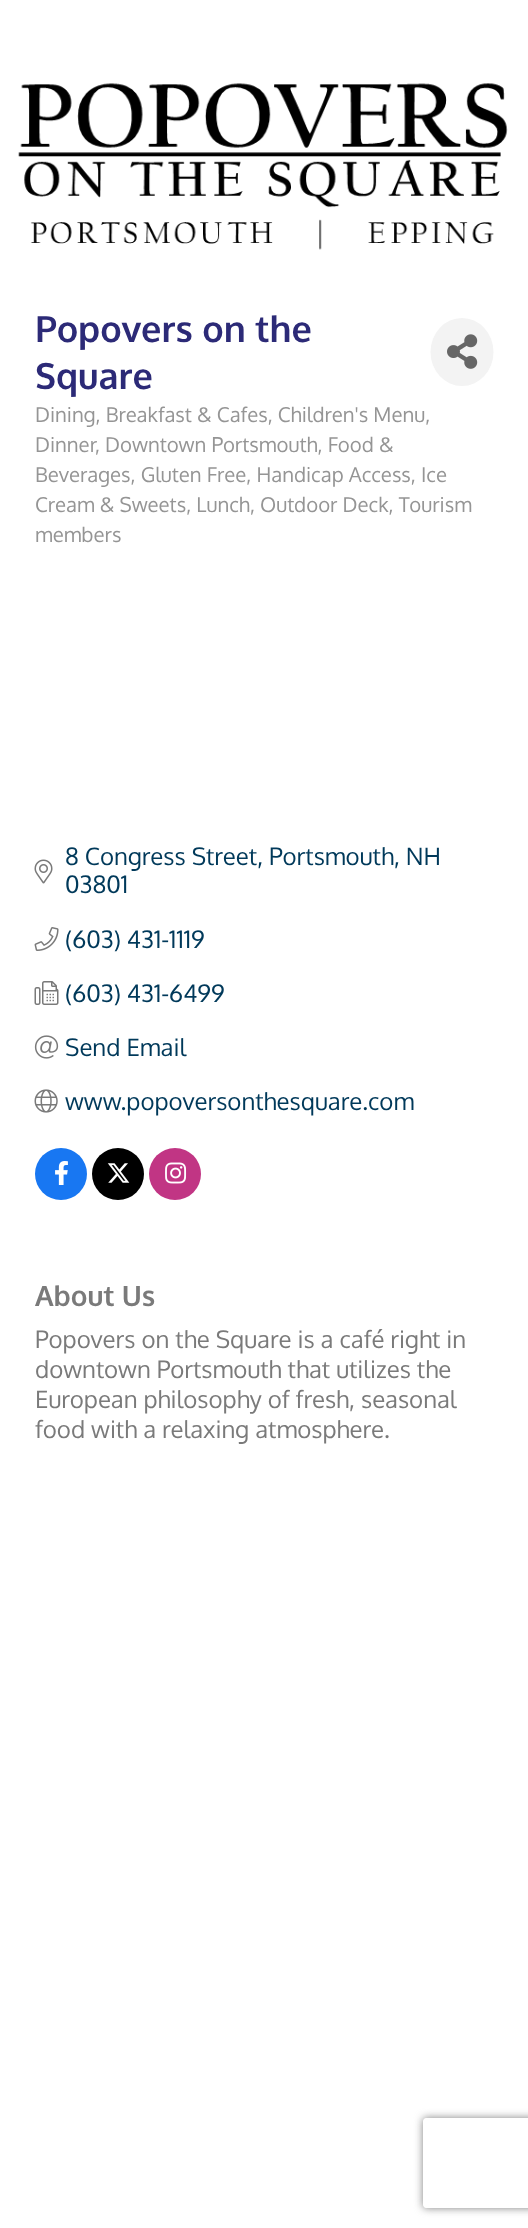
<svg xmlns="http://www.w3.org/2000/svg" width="528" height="2228">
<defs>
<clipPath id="clip1"><path d="M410 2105h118v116h-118zm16 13h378c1.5 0 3 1.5 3 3v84c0 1.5-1.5 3-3 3h-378c-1.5 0-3-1.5-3-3v-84c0-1.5 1.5-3 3-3z" clip-rule="evenodd"/></clipPath>
</defs>
<rect width="100%" height="100%" fill="#fff"/>
<image x="18" y="83" width="490" height="167" href="media/1.png"/>
<text x="35" y="342" style="font-family:Oxygen;font-size:36px;font-weight:bold;fill:#2c2a77">Popovers on the</text>
<text x="35" y="389" style="font-family:Oxygen;font-size:36px;font-weight:bold;fill:#2c2a77">Square</text>
<ellipse cx="462" cy="352" rx="31.5" ry="34" fill="#f3f3f3"/>
<image x="447" y="334" width="31" height="35" href="media/2.png"/>
<text x="35" y="422" style="font-family:Oxygen;font-size:20.4px;fill:#959595">Dining, Breakfast &amp; Cafes, Children's Menu,</text>
<text x="35" y="452" style="font-family:Oxygen;font-size:20.4px;fill:#959595">Dinner</text>
<text x="95" y="452" style="font-family:Oxygen;font-size:20.4px;fill:#959595">, Downtown Portsmouth, Food &amp;</text>
<text x="35" y="482" style="font-family:Oxygen;font-size:20.4px;fill:#959595">Beverages, Gluten Free, Handicap Access, Ice</text>
<text x="35" y="512" style="font-family:Oxygen;font-size:20.4px;fill:#959595">Cream &amp; Sweets, Lunch, Outdoor Deck, Tourism</text>
<text x="35" y="542" style="font-family:Oxygen;font-size:20.4px;fill:#959595">members</text>
<image x="34" y="859" width="19" height="25" href="media/3.png"/>
<text x="65" y="865" style="font-family:Oxygen;font-size:24px;fill:#00395a">8 Congress Street, Portsmouth, NH</text>
<text x="65" y="893" style="font-family:Oxygen;font-size:24px;fill:#00395a">03801</text>
<image x="34" y="927" width="25" height="24" href="media/4.png"/>
<text x="65" y="948" style="font-family:Oxygen;font-size:24px;fill:#00395a">(603) 431-1119</text>
<image x="34" y="981" width="25" height="24" href="media/5.png"/>
<text x="65" y="1002" style="font-family:Oxygen;font-size:24px;fill:#00395a">(603) 431-6499</text>
<image x="34" y="1035" width="25" height="24" href="media/6.png"/>
<text x="65" y="1056" style="font-family:Oxygen;font-size:24px;fill:#00395a">Send Email</text>
<image x="34" y="1089" width="24" height="24" href="media/7.png"/>
<text x="65" y="1110" style="font-family:Oxygen;font-size:24px;fill:#00395a">www.popoversonthesquare.com</text>
<circle cx="61" cy="1174" r="26" fill="#1877f2"/>
<image x="55" y="1161" width="13" height="24" href="media/8.png"/>
<circle cx="118" cy="1174" r="26" fill="#000"/>
<image x="107" y="1163" width="23" height="20" href="media/9.png"/>
<circle cx="175" cy="1174" r="26" fill="#c13584"/>
<image x="165" y="1162" width="22" height="22" href="media/10.png"/>
<text x="35" y="1306" style="font-family:Oxygen;font-size:28px;font-weight:bold;fill:#7a7a7a">About Us</text>
<text x="35" y="1348" style="font-family:Oxygen;font-size:24px;fill:#7a7a7a">Popovers on the Square is a café right in</text>
<text x="35" y="1378" style="font-family:Oxygen;font-size:24px;fill:#7a7a7a">downtown Portsmouth that utilizes the</text>
<text x="35" y="1408" style="font-family:Oxygen;font-size:24px;fill:#7a7a7a">European philosophy of fresh, seasonal</text>
<text x="35" y="1438" style="font-family:Oxygen;font-size:24px;fill:#7a7a7a">food with a relaxing atmosphere.</text>
<g clip-path="url(#clip1)">
<rect x="423" y="2118" width="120" height="90" rx="3" fill="#808080" filter="blur(4px)"/>
</g>
</svg>
